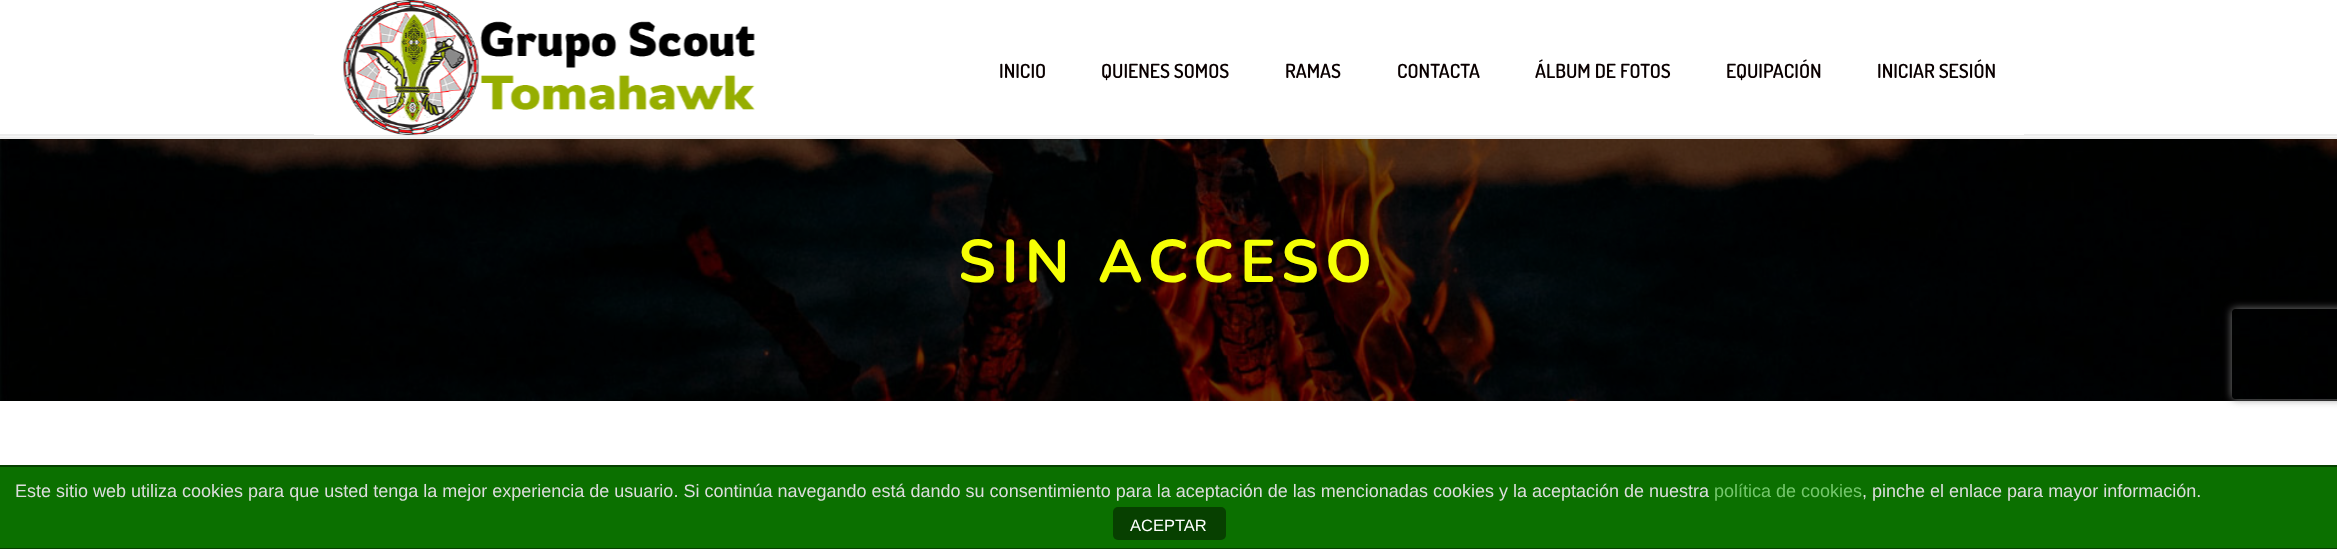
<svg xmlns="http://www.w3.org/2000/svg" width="2337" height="549">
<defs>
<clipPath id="clip1"><path d="M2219 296h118v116h-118zm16 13h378c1.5 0 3 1.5 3 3v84c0 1.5-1.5 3-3 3h-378c-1.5 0-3-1.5-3-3v-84c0-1.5 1.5-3 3-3z" clip-rule="evenodd"/></clipPath>
</defs>
<rect width="100%" height="100%" fill="#fff"/>
<rect y="136" width="2337" height="1" fill="#f7f7f7"/>
<rect y="137" width="2337" height="2" fill="#ededed"/>
<rect y="134" width="2337" height="2" fill="#ededed"/>
<rect x="314" y="134" width="1710" height="1" fill="#fff"/>
<image x="343" y="0" width="412" height="135" href="media/1.png"/>
<text x="999" y="78" style="font-family:Dosis;font-size:19.5px;font-weight:600;fill:#0a0000">INICIO</text>
<text x="1101" y="78" style="font-family:Dosis;font-size:19.5px;font-weight:600;fill:#0a0000">QUIENES SOMOS</text>
<text x="1285" y="78" style="font-family:Dosis;font-size:19.5px;font-weight:600;fill:#0a0000">RAMAS</text>
<text x="1397" y="78" style="font-family:Dosis;font-size:19.5px;font-weight:600;fill:#0a0000">CONTACTA</text>
<text x="1535" y="78" style="font-family:Dosis;font-size:19.5px;font-weight:600;fill:#0a0000">ÁLBUM DE FOTOS</text>
<text x="1726" y="78" style="font-family:Dosis;font-size:19.5px;font-weight:600;fill:#0a0000">EQUIPACIÓN</text>
<text x="1877" y="78" style="font-family:Dosis;font-size:19.5px;font-weight:600;fill:#0a0000">INICIAR SESIÓN</text>
<image x="0" y="139" width="2337" height="262" href="media/2.png"/>
<text x="958" y="282" style="font-family:Nunito;font-size:60px;font-weight:bold;letter-spacing:6px;fill:#f6ff05">SIN ACCESO</text>
<g clip-path="url(#clip1)">
<rect x="2232" y="309" width="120" height="90" rx="3" fill="#808080" filter="blur(4px)"/>
</g>
<rect y="467" width="2337" height="81" fill="#0b7000"/>
<rect y="465" width="2337" height="2" fill="#064000"/>
<rect y="548" width="2337" height="1" fill="#064000"/>
<text x="15" y="497" style="font-family:Liberation Sans;font-size:18px;fill:#ddd">Este sitio web utiliza cookies para que usted tenga la mejor experiencia de usuario. Si continúa navegando está dando su consentimiento para la aceptación de las mencionadas cookies y la aceptación de nuestra</text>
<text x="1714" y="497" style="font-family:Liberation Sans;font-size:18px;fill:#75c76c">política de cookies</text>
<text x="1862" y="497" style="font-family:Liberation Sans;font-size:18px;fill:#ddd">, pinche el enlace para mayor información.</text>
<rect x="1113" y="507" width="113" height="33" rx="5" fill="#074000"/>
<text x="1130" y="531" style="font-family:Liberation Sans;font-size:16.5px;fill:#fff">ACEPTAR</text>
</svg>
